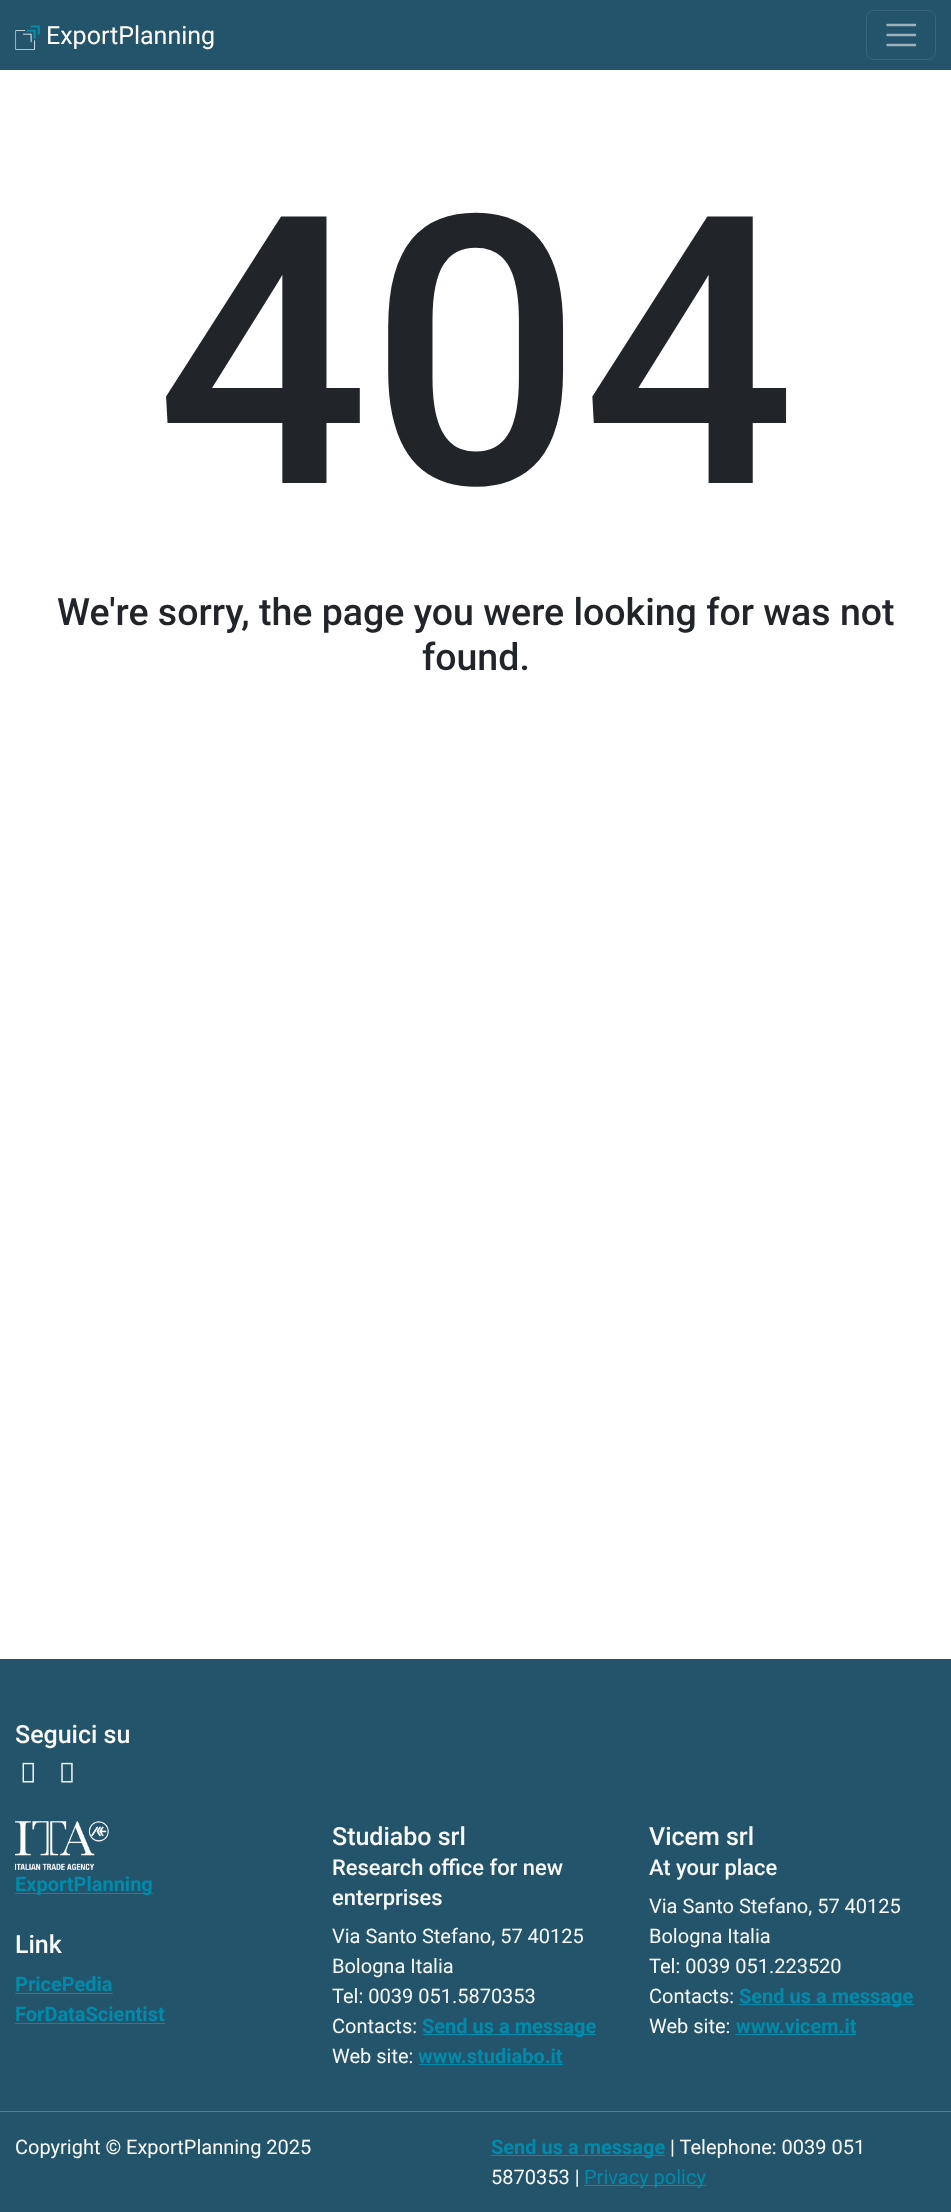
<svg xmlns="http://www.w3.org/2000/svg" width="951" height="2212">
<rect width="100%" height="100%" fill="#fff"/>
<rect width="951" height="70" fill="#23546b"/>
<image x="15" y="25" width="25" height="25" href="media/1.png"/>
<text x="46" y="44" style="font-family:Roboto;font-size:25px;fill:#fff">ExportPlanning</text>
<rect x="866.5" y="10.5" width="69" height="49" rx="7.5" fill="none" stroke="#39657a"/>
<path d="M887.5 25h27.5m-27.5 10h27.5m-27.5 10h27.5" fill="none" stroke="#9cb2bc" stroke-width="2.5" stroke-linecap="round"/>
<text x="156" y="483" style="font-family:Roboto;font-size:375px;font-weight:500;fill:#212529">404</text>
<text x="57" y="625" style="font-family:Roboto;font-size:37.5px;font-weight:500;fill:#212529">We're sorry, the page you were looking for was not</text>
<text x="422" y="670" style="font-family:Roboto;font-size:37.5px;font-weight:500;fill:#212529">found.</text>
<rect y="1659" width="951" height="553" fill="#23546b"/>
<text x="15" y="1743" style="font-family:Roboto;font-size:25px;font-weight:500;fill:#f8f9fa">Seguici su</text>
<image x="22" y="1762" width="12" height="21" href="media/2.png"/>
<image x="61" y="1762" width="12" height="21" href="media/3.png"/>
<image x="15" y="1821" width="94" height="49" href="media/4.png"/>
<rect x="15" y="1893" width="138" height="1" fill="#008baa"/>
<text x="15" y="1891" style="font-family:Roboto;font-size:20px;font-weight:bold;fill:#008baa">ExportPlanning</text>
<text x="15" y="1953" style="font-family:Roboto;font-size:25px;font-weight:500;fill:#f8f9fa">Link</text>
<text x="15" y="1991" style="font-family:Roboto;font-size:20px;font-weight:bold;fill:#008baa">PricePedia</text>
<rect x="15" y="1993" width="98" height="1" fill="#008baa"/>
<text x="15" y="2021" style="font-family:Roboto;font-size:20px;font-weight:bold;fill:#008baa">ForDataScientist</text>
<rect x="15" y="2023" width="150" height="1" fill="#008baa"/>
<text x="332" y="1845" style="font-family:Roboto;font-size:25px;font-weight:500;fill:#f8f9fa">Studiabo srl</text>
<text x="332" y="1875" style="font-family:Roboto;font-size:21.9px;font-weight:500;fill:#f8f9fa">Research office for new</text>
<text x="332" y="1905" style="font-family:Roboto;font-size:21.9px;font-weight:500;fill:#f8f9fa">enterprises</text>
<text x="332" y="1943" style="font-family:Roboto;font-size:20px;fill:#f8f9fa">Via Santo Stefano, 57 40125</text>
<text x="332" y="1973" style="font-family:Roboto;font-size:20px;fill:#f8f9fa">Bologna Italia</text>
<text x="332" y="2003" style="font-family:Roboto;font-size:20px;fill:#f8f9fa">Tel: 0039 051.5870353</text>
<text x="332" y="2033" style="font-family:Roboto;font-size:20px;fill:#f8f9fa">Contacts:</text>
<rect x="423" y="2034" width="173" height="1" fill="#008baa"/>
<text x="422" y="2033" style="font-family:Roboto;font-size:20px;font-weight:bold;fill:#008baa">Send us a message</text>
<text x="332" y="2063" style="font-family:Roboto;font-size:20px;fill:#f8f9fa">Web site:</text>
<text x="418" y="2063" style="font-family:Roboto;font-size:20px;font-weight:bold;fill:#008baa">www.studiabo.it</text>
<rect x="419" y="2064" width="144" height="1" fill="#008baa"/>
<text x="649" y="1845" style="font-family:Roboto;font-size:25px;font-weight:500;fill:#f8f9fa">Vicem srl</text>
<text x="649" y="1875" style="font-family:Roboto;font-size:21.9px;font-weight:500;fill:#f8f9fa">At your place</text>
<text x="649" y="1913" style="font-family:Roboto;font-size:20px;fill:#f8f9fa">Via Santo Stefano, 57 40125</text>
<text x="649" y="1943" style="font-family:Roboto;font-size:20px;fill:#f8f9fa">Bologna Italia</text>
<text x="649" y="1973" style="font-family:Roboto;font-size:20px;fill:#f8f9fa">Tel: 0039 051.223520</text>
<text x="649" y="2003" style="font-family:Roboto;font-size:20px;fill:#f8f9fa">Contacts:</text>
<rect x="739" y="2004" width="175" height="1" fill="#008baa"/>
<text x="739" y="2003" style="font-family:Roboto;font-size:20px;font-weight:bold;fill:#008baa">Send us a message</text>
<text x="649" y="2033" style="font-family:Roboto;font-size:20px;fill:#f8f9fa">Web site:</text>
<text x="736" y="2033" style="font-family:Roboto;font-size:20px;font-weight:bold;fill:#008baa">www.vicem.it</text>
<rect x="735" y="2034" width="121" height="1" fill="#008baa"/>
<rect y="2111" width="951" height="1" fill="#587d8f"/>
<text x="15" y="2154" style="font-family:Roboto;font-size:20px;fill:#f8f9fa">Copyright © ExportPlanning 2025</text>
<rect x="491" y="2155" width="174" height="1" fill="#008baa"/>
<text x="491" y="2154" style="font-family:Roboto;font-size:20px;font-weight:bold;fill:#008baa">Send us a message</text>
<text x="670" y="2154" style="font-family:Roboto;font-size:20px;fill:#f8f9fa">| Telephone: 0039 051</text>
<text x="491" y="2184" style="font-family:Roboto;font-size:20px;fill:#f8f9fa">5870353 |</text>
<rect x="584" y="2185" width="122" height="1" fill="#008baa"/>
<text x="584" y="2184" style="font-family:Roboto;font-size:20px;fill:#008baa">Privacy policy</text>
</svg>
